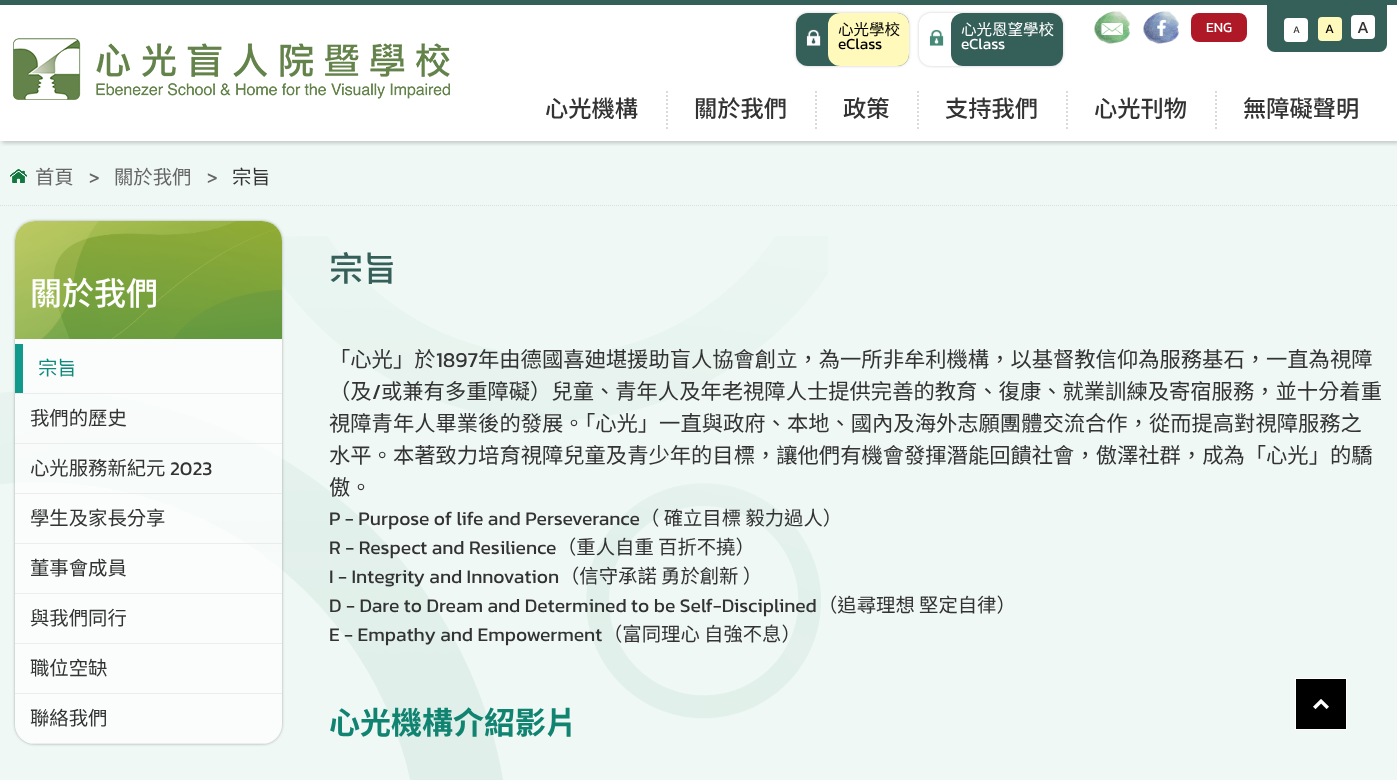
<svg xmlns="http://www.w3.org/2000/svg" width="1397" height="780">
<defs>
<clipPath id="clip1"><rect x="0" y="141" width="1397" height="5"/></clipPath>
<clipPath id="clip2"><path d="M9 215h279v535h-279zm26 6h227c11 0 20 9 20 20v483c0 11-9 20-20 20h-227c-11 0-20-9-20-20v-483c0-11 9-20 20-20z" clip-rule="evenodd"/></clipPath>
<clipPath id="clip3"><rect x="15" y="221" width="267" height="523" rx="20"/></clipPath>
</defs>
<rect width="100%" height="100%" fill="#fff"/>
<rect y="141" width="1397" height="639" fill="#eff8f5"/>
<g clip-path="url(#clip1)">
<rect x="2" y="2" width="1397" height="141" fill="#00000033" filter="blur(2px)"/>
</g>
<rect width="1397" height="5" fill="#355f59"/>
<image x="13" y="38" width="437" height="62" href="media/1.png"/>
<rect x="796" y="13" width="113" height="53" rx="12" fill="#00000033" filter="blur(1.5px)"/>
<rect x="796" y="13" width="113" height="53" rx="12" fill="#355f59"/>
<image x="806" y="29" width="15" height="17" href="media/2.png"/>
<rect x="828" y="13" width="81" height="53" rx="12" fill="#fffabb"/>
<text x="838" y="35" style="font-family:Noto Sans TC;font-size:15.5px;fill:#000">心光學校</text>
<text x="838" y="49" style="font-family:Kanit;font-size:15.5px;fill:#000">eClass</text>
<rect x="919" y="13" width="144" height="53" rx="12" fill="#00000033" filter="blur(1.5px)"/>
<rect x="919" y="13" width="144" height="53" rx="12" fill="#fff"/>
<image x="929" y="29" width="15" height="17" href="media/3.png"/>
<rect x="951" y="13" width="112" height="53" rx="12" fill="#355f59"/>
<text x="961" y="35" style="font-family:Noto Sans TC;font-size:15.5px;fill:#fff">心光恩望學校</text>
<text x="961" y="49" style="font-family:Kanit;font-size:15.5px;fill:#fff">eClass</text>
<image x="1094" y="11" width="36" height="33" href="media/4.png"/>
<image x="1143" y="11" width="36" height="33" href="media/5.png"/>
<rect x="1191" y="13" width="56" height="29" rx="8" fill="#af1827"/>
<text x="1206" y="32" style="font-family:Kanit;font-size:14px;fill:#fff">ENG</text>
<path d="M1267 5h120v39c0 4.5-3.5 8-8 8h-104c-4.5 0-8-3.5-8-8z" fill="#355f59"/>
<rect x="1284" y="18" width="24" height="24" rx="4" fill="#fff"/>
<text x="1293" y="33" style="font-family:Kanit;font-size:10px;fill:#333">A</text>
<rect x="1318" y="17" width="24" height="24" rx="4" fill="#fffabb"/>
<text x="1325" y="33" style="font-family:Kanit;font-size:13px;fill:#000">A</text>
<rect x="1351" y="15" width="24" height="24" rx="4" fill="#fff"/>
<text x="1357" y="33" style="font-family:Kanit;font-size:17px;fill:#333">A</text>
<text x="545" y="117" style="font-family:Noto Sans TC;font-size:23.25px;font-weight:500;fill:#333">心光機構</text>
<path d="M667 91v40" fill="none" stroke="#dadada" stroke-width="2" stroke-dasharray="2 2"/>
<text x="694" y="117" style="font-family:Noto Sans TC;font-size:23.25px;font-weight:500;fill:#333">關於我們</text>
<path d="M816 91v40" fill="none" stroke="#dadada" stroke-width="2" stroke-dasharray="2 2"/>
<text x="843" y="117" style="font-family:Noto Sans TC;font-size:23.25px;font-weight:500;fill:#333">政策</text>
<path d="M918 91v40" fill="none" stroke="#dadada" stroke-width="2" stroke-dasharray="2 2"/>
<text x="945" y="117" style="font-family:Noto Sans TC;font-size:23.25px;font-weight:500;fill:#333">支持我們</text>
<path d="M1067 91v40" fill="none" stroke="#dadada" stroke-width="2" stroke-dasharray="2 2"/>
<text x="1094" y="117" style="font-family:Noto Sans TC;font-size:23.25px;font-weight:500;fill:#333">心光刊物</text>
<path d="M1216 91v40" fill="none" stroke="#dadada" stroke-width="2" stroke-dasharray="2 2"/>
<text x="1243" y="117" style="font-family:Noto Sans TC;font-size:23.25px;font-weight:500;fill:#333">無障礙聲明</text>
<image x="0" y="236" width="828" height="544" href="media/6.png"/>
<path d="M0 205.5h1397" fill="none" stroke="#ddd" stroke-dasharray="1 1"/>
<image x="10" y="169" width="17" height="14" href="media/7.png"/>
<text x="35" y="184" style="font-family:Noto Sans TC;font-size:19.35px;fill:#666">首頁</text>
<text x="89" y="184" style="font-family:Kanit;font-size:19.35px;fill:#666">&gt;</text>
<text x="114" y="184" style="font-family:Noto Sans TC;font-size:19.35px;fill:#666">關於我們</text>
<text x="207" y="184" style="font-family:Kanit;font-size:19.35px;fill:#666">&gt;</text>
<text x="232" y="184" style="font-family:Noto Sans TC;font-size:19.35px;fill:#333">宗旨</text>
<g clip-path="url(#clip2)">
<rect x="15" y="221" width="267" height="523" rx="20" fill="#0000004d" filter="blur(1.5px)"/>
</g>
<rect x="15" y="221" width="267" height="523" rx="20" fill="#ffffffb3"/>
<image x="15" y="221" width="267" height="118" href="media/8.png"/>
<text x="30" y="305" style="font-family:Noto Sans TC;font-size:32px;font-weight:500;fill:#fff">關於我們</text>
<rect x="15" y="393" width="267" height="1" fill="#ececec"/>
<rect x="15" y="344" width="8" height="49" fill="#119a8c"/>
<text x="38" y="375" style="font-family:Noto Sans TC;font-size:19.35px;fill:#11887c">宗旨</text>
<rect x="15" y="443" width="267" height="1" fill="#ececec"/>
<text x="30" y="425" style="font-family:Noto Sans TC;font-size:19.35px;fill:#333">我們的歷史</text>
<rect x="15" y="493" width="267" height="1" fill="#ececec"/>
<text x="30" y="475" style="font-family:Noto Sans TC;font-size:19.35px;fill:#333">心光服務新紀元</text>
<text x="170" y="475" style="font-family:Kanit;font-size:19.35px;fill:#333">2023</text>
<rect x="15" y="543" width="267" height="1" fill="#ececec"/>
<text x="30" y="525" style="font-family:Noto Sans TC;font-size:19.35px;fill:#333">學生及家長分享</text>
<rect x="15" y="593" width="267" height="1" fill="#ececec"/>
<text x="30" y="575" style="font-family:Noto Sans TC;font-size:19.35px;fill:#333">董事會成員</text>
<rect x="15" y="643" width="267" height="1" fill="#ececec"/>
<text x="30" y="625" style="font-family:Noto Sans TC;font-size:19.35px;fill:#333">與我們同行</text>
<rect x="15" y="693" width="267" height="1" fill="#ececec"/>
<text x="30" y="675" style="font-family:Noto Sans TC;font-size:19.35px;fill:#333">職位空缺</text>
<g clip-path="url(#clip3)">
<rect x="29" y="743" width="239" height="1" fill="#ececec"/>
</g>
<text x="30" y="725" style="font-family:Noto Sans TC;font-size:19.35px;fill:#333">聯絡我們</text>
<text x="329" y="281" style="font-family:Noto Sans TC;font-size:34px;font-weight:500;fill:#355f59">宗旨</text>
<text x="329" y="367" style="font-family:Noto Sans TC;font-size:21.3px;fill:#333">「心光」於</text>
<text x="436" y="367" style="font-family:Kanit;font-size:21.3px;fill:#333">1897</text>
<text x="478" y="367" style="font-family:Noto Sans TC;font-size:21.3px;fill:#333">年由德國喜廸堪援助盲人協會創立，為一所非牟利機構，以基督教信仰為服務基石，一直為視障</text>
<text x="329" y="399" style="font-family:Noto Sans TC;font-size:21.3px;fill:#333">（及</text>
<text x="372" y="399" style="font-family:Kanit;font-size:21.3px;fill:#333">/</text>
<text x="381" y="399" style="font-family:Noto Sans TC;font-size:21.3px;fill:#333">或兼有多重障礙）兒童、青年人及年老視障人士提供完善的教育、復康、就業訓練及寄宿服務，並十分着重</text>
<text x="329" y="431" style="font-family:Noto Sans TC;font-size:21.3px;fill:#333">視障青年人畢業後的發展。「心光」一直與政府、本地、國內及海外志願團體交流合作，從而提高對視障服務之</text>
<text x="329" y="463" style="font-family:Noto Sans TC;font-size:21.3px;fill:#333">水平。本著致力培育視障兒童及青少年的目標，讓他們有機會發揮潛能回饋社會，傲澤社群，成為「心光」的驕</text>
<text x="329" y="495" style="font-family:Noto Sans TC;font-size:21.3px;fill:#333">傲。</text>
<text x="329" y="525" style="font-family:Kanit;font-size:19.35px;fill:#333">P - Purpose of life and Perseverance</text>
<text x="640" y="525" style="font-family:Noto Sans TC;font-size:19.35px;fill:#333">（ 確立目標 毅力過人）</text>
<text x="329" y="554" style="font-family:Kanit;font-size:19.35px;fill:#333">R - Respect and Resilience</text>
<text x="557" y="554" style="font-family:Noto Sans TC;font-size:19.35px;fill:#333">（重人自重 百折不撓）</text>
<text x="329" y="583" style="font-family:Kanit;font-size:19.35px;fill:#333">I - Integrity and Innovation</text>
<text x="560" y="583" style="font-family:Noto Sans TC;font-size:19.35px;fill:#333">（信守承諾 勇於創新 ）</text>
<text x="329" y="612" style="font-family:Kanit;font-size:19.35px;fill:#333">D - Dare to Dream and Determined to be Self-Disciplined</text>
<text x="818" y="612" style="font-family:Noto Sans TC;font-size:19.35px;fill:#333">（追尋理想 堅定自律）</text>
<text x="329" y="641" style="font-family:Kanit;font-size:19.35px;fill:#333">E - Empathy and Empowerment</text>
<text x="603" y="641" style="font-family:Noto Sans TC;font-size:19.35px;fill:#333">（富同理心 自強不息）</text>
<text x="329" y="734" style="font-family:Noto Sans TC;font-size:31px;font-weight:bold;fill:#108371">心光機構介紹影片</text>
<rect x="1296" y="679" width="50" height="50" fill="#000"/>
<image x="1313" y="699" width="16" height="11" href="media/9.png"/>
<rect x="1295.5" y="678.5" width="51" height="51" fill="none" stroke="#fff"/>
</svg>
